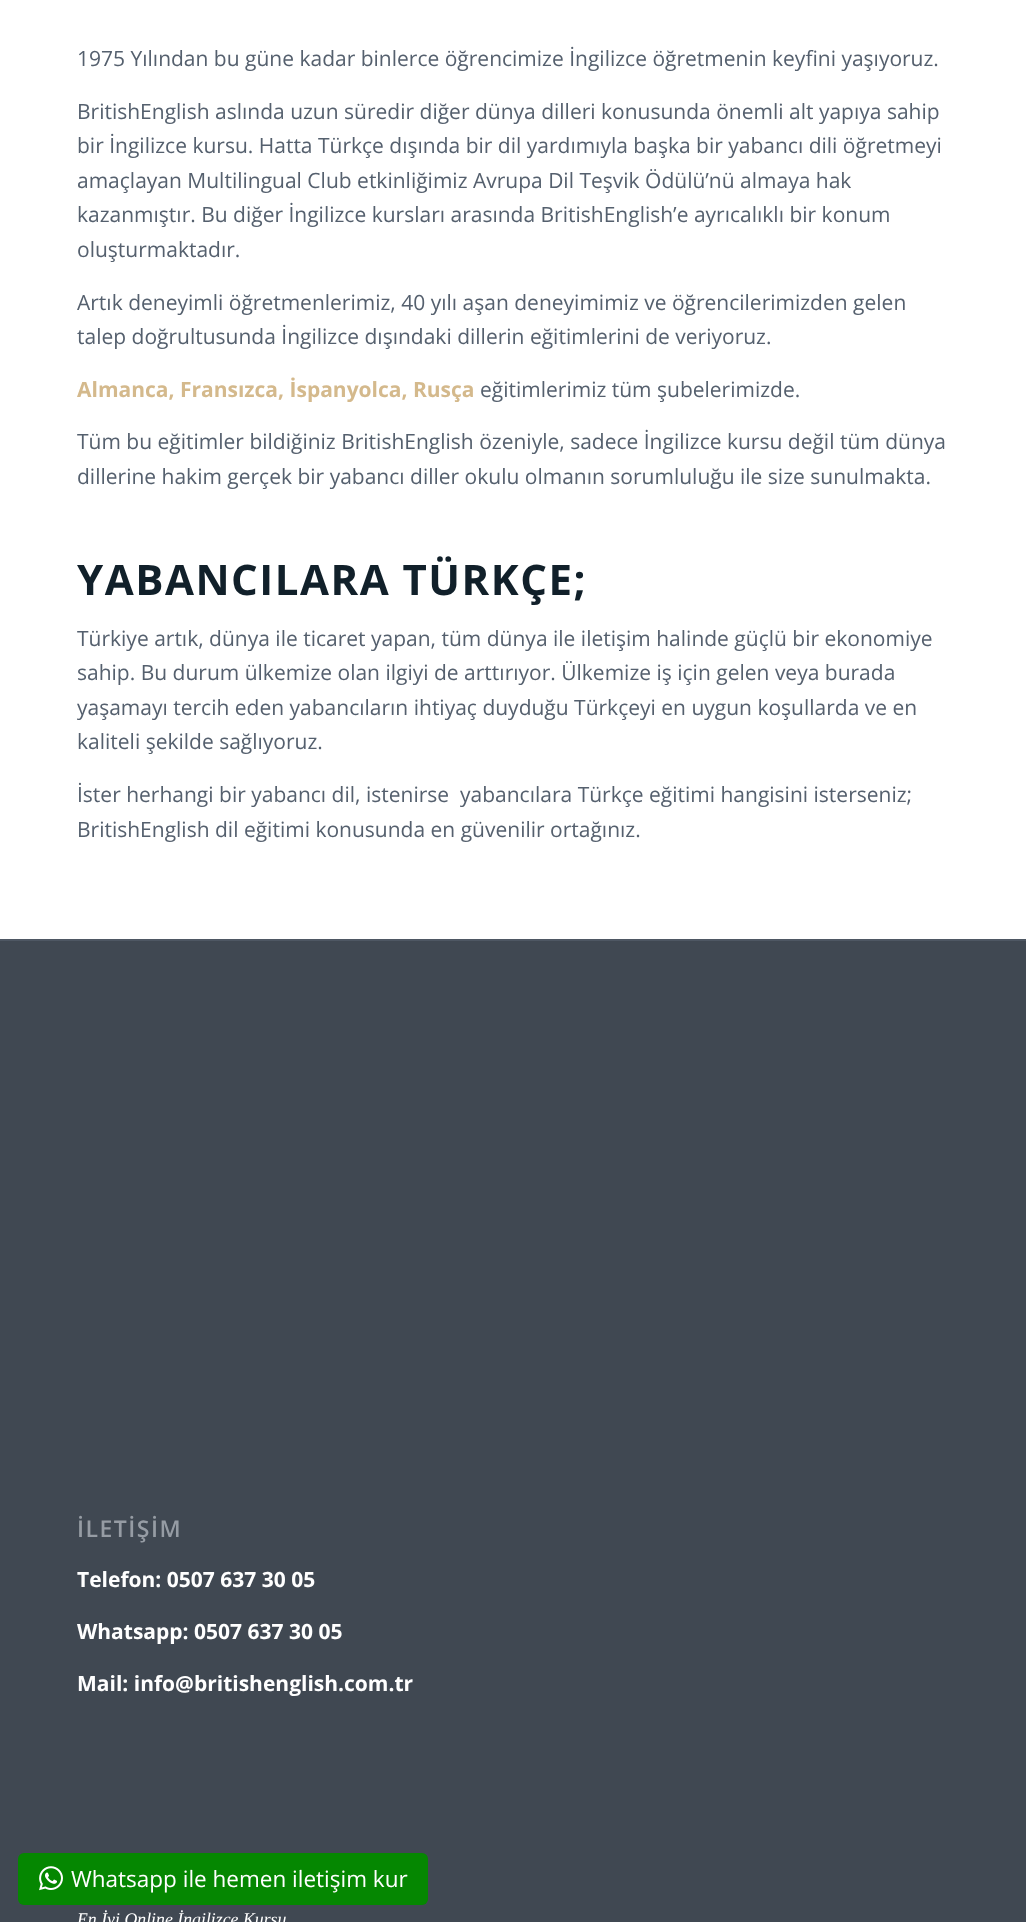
<svg xmlns="http://www.w3.org/2000/svg" width="1026" height="1922">
<rect width="100%" height="100%" fill="#fff"/>
<text x="77" y="66" style="font-family:Open Sans;font-size:21px;fill:#55606e">1975 Yılından bu güne kadar binlerce öğrencimize İngilizce öğretmenin keyfini yaşıyoruz.</text>
<text x="77" y="119" style="font-family:Open Sans;font-size:21px;fill:#55606e">BritishEnglish aslında uzun süredir diğer dünya dilleri konusunda önemli alt yapıya sahip</text>
<text x="77" y="153" style="font-family:Open Sans;font-size:21px;fill:#55606e">bir İngilizce kursu. Hatta Türkçe dışında bir dil yardımıyla başka bir yabancı dili öğretmeyi</text>
<text x="77" y="188" style="font-family:Open Sans;font-size:21px;fill:#55606e">amaçlayan Multilingual Club etkinliğimiz Avrupa Dil Teşvik Ödülü’nü almaya hak</text>
<text x="77" y="222" style="font-family:Open Sans;font-size:21px;fill:#55606e">kazanmıştır. Bu diğer İngilizce kursları arasında BritishEnglish’e ayrıcalıklı bir konum</text>
<text x="77" y="257" style="font-family:Open Sans;font-size:21px;fill:#55606e">oluşturmaktadır.</text>
<text x="77" y="310" style="font-family:Open Sans;font-size:21px;fill:#55606e">Artık deneyimli öğretmenlerimiz, 40 yılı aşan deneyimimiz ve öğrencilerimizden gelen</text>
<text x="77" y="344" style="font-family:Open Sans;font-size:21px;fill:#55606e">talep doğrultusunda İngilizce dışındaki dillerin eğitimlerini de veriyoruz.</text>
<text x="77" y="397" style="font-family:Open Sans;font-size:21px;font-weight:bold;fill:#d4b98c">Almanca, Fransızca, İspanyolca, Rusça</text>
<text x="480" y="397" style="font-family:Open Sans;font-size:21px;fill:#55606e">eğitimlerimiz tüm şubelerimizde.</text>
<text x="77" y="449" style="font-family:Open Sans;font-size:21px;fill:#55606e">Tüm bu eğitimler bildiğiniz BritishEnglish özeniyle, sadece İngilizce kursu değil tüm dünya</text>
<text x="77" y="484" style="font-family:Open Sans;font-size:21px;fill:#55606e">dillerine hakim gerçek bir yabancı diller okulu olmanın sorumluluğu ile size sunulmakta.</text>
<text x="77" y="595" style="font-family:Open Sans;font-size:42px;font-weight:bold;letter-spacing:1.5px;fill:#11202a">YABANCILARA TÜRKÇE;</text>
<text x="77" y="646" style="font-family:Open Sans;font-size:21px;fill:#55606e">Türkiye artık, dünya ile ticaret yapan, tüm dünya ile iletişim halinde güçlü bir ekonomiye</text>
<text x="77" y="680" style="font-family:Open Sans;font-size:21px;fill:#55606e">sahip. Bu durum ülkemize olan ilgiyi de arttırıyor. Ülkemize iş için gelen veya burada</text>
<text x="77" y="715" style="font-family:Open Sans;font-size:21px;fill:#55606e">yaşamayı tercih eden yabancıların ihtiyaç duyduğu Türkçeyi en uygun koşullarda ve en</text>
<text x="77" y="749" style="font-family:Open Sans;font-size:21px;fill:#55606e">kaliteli şekilde sağlıyoruz.</text>
<text x="77" y="802" style="font-family:Open Sans;font-size:21px;fill:#55606e" xml:space="preserve">İster herhangi bir yabancı dil, istenirse  yabancılara Türkçe eğitimi hangisini isterseniz;</text>
<text x="77" y="837" style="font-family:Open Sans;font-size:21px;fill:#55606e">BritishEnglish dil eğitimi konusunda en güvenilir ortağınız.</text>
<rect y="941" width="1026" height="981" fill="#404852"/>
<rect y="939" width="1026" height="2" fill="#4e5763"/>
<text x="77" y="1537" style="font-family:Open Sans;font-size:23px;font-weight:600;letter-spacing:1.5px;fill:#969ca4">İLETİŞİM</text>
<text x="77" y="1587" style="font-family:Open Sans;font-size:21px;font-weight:bold;fill:#fff">Telefon: 0507 637 30 05</text>
<text x="77" y="1639" style="font-family:Open Sans;font-size:21px;font-weight:bold;fill:#fff">Whatsapp: 0507 637 30 05</text>
<text x="77" y="1691" style="font-family:Open Sans;font-size:21px;font-weight:bold;fill:#fff">Mail: info@britishenglish.com.tr</text>
<text x="77" y="1925" style="font-family:Liberation Serif;font-size:17.8px;font-style:italic;fill:#fff">En İyi Online İngilizce Kursu</text>
<rect x="18" y="1853" width="410" height="52" rx="6" fill="#058701"/>
<image x="39" y="1866" width="24" height="25" href="media/1.png"/>
<text x="71" y="1887" style="font-family:Open Sans;font-size:22.5px;fill:#fff">Whatsapp ile hemen iletişim kur</text>
</svg>
